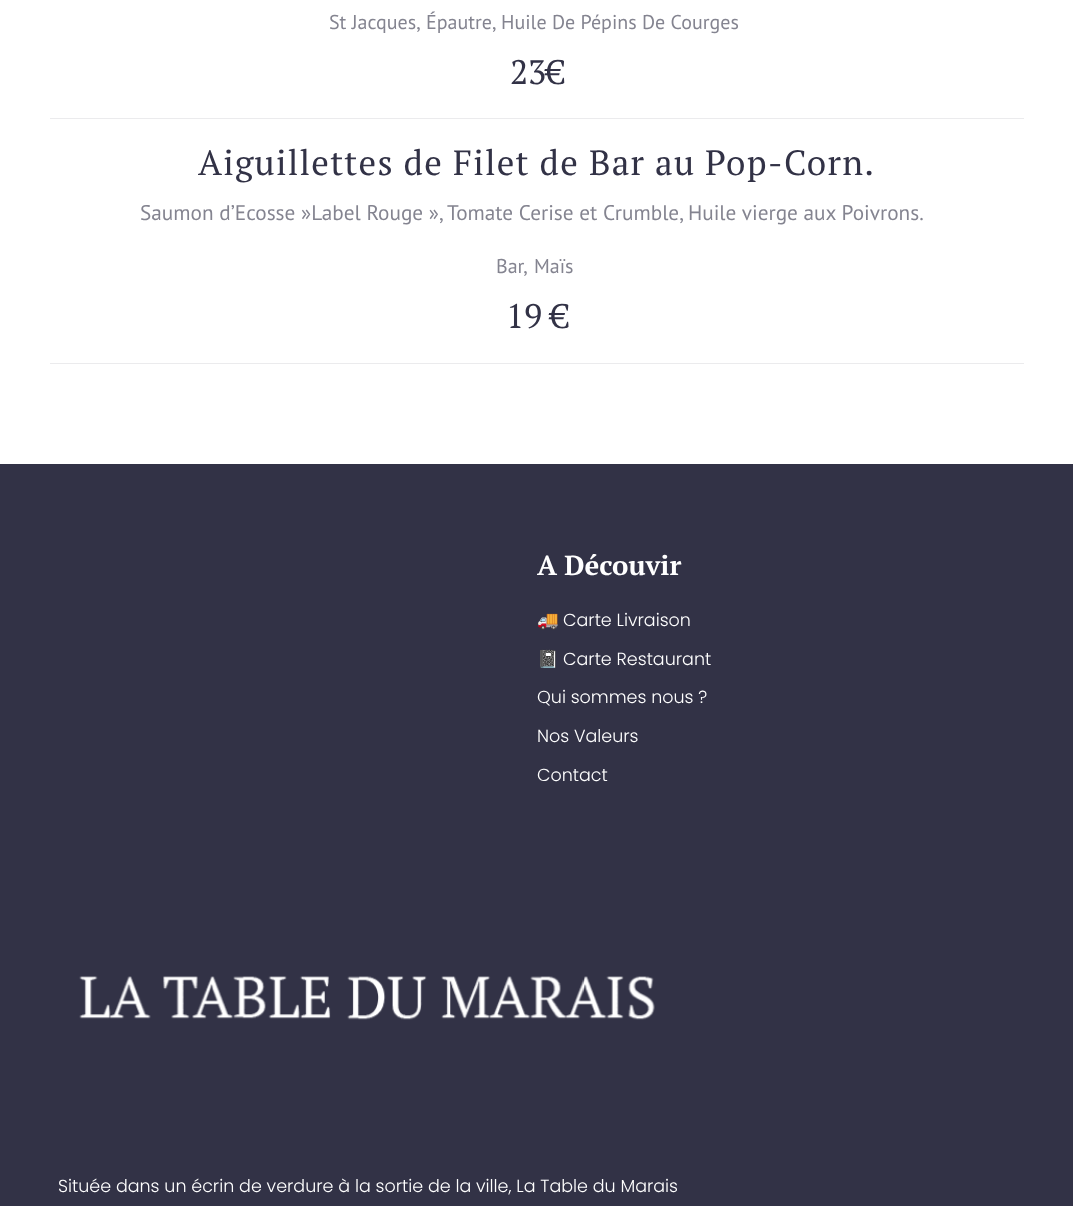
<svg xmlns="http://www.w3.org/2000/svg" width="1073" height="1206">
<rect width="100%" height="100%" fill="#fff"/>
<rect x="50" y="118" width="974" height="1" fill="#ebebed"/>
<text x="329" y="29" style="font-family:PT Sans;font-size:20px;fill:#848490">St Jacques,</text>
<text x="426" y="29" style="font-family:PT Sans;font-size:20px;fill:#848490">Épautre,</text>
<text x="501" y="29" style="font-family:PT Sans;font-size:20px;fill:#848490">Huile De Pépins De Courges</text>
<text x="510" y="84" style="font-family:PT Serif;font-size:34px;fill:#323246">23€</text>
<rect x="50" y="363" width="974" height="1" fill="#ebebed"/>
<text x="198" y="175" style="font-family:PT Serif;font-size:35px;letter-spacing:1.25px;fill:#323246">Aiguillettes de Filet de Bar au Pop-Corn.</text>
<text x="140" y="220" style="font-family:PT Sans;font-size:21.25px;fill:#848490">Saumon d’Ecosse »Label Rouge », Tomate Cerise et Crumble, Huile vierge aux Poivrons.</text>
<text x="496" y="273" style="font-family:PT Sans;font-size:20px;fill:#848490">Bar,</text>
<text x="534" y="273" style="font-family:PT Sans;font-size:20px;fill:#848490">Maïs</text>
<text x="506" y="328" style="font-family:PT Serif;font-size:34px;fill:#323246">19 €</text>
<rect y="464" width="1073" height="742" fill="#323246"/>
<text x="537" y="575" style="font-family:PT Serif;font-size:27.5px;font-weight:bold;fill:#fff">A Découvir</text>
<text x="537" y="626" style="font-family:Noto Color Emoji;font-size:17.5px;fill:#fff">🚚</text>
<text x="563" y="626" style="font-family:Poppins;font-size:17.5px;font-weight:300;fill:#fff">Carte Livraison</text>
<text x="537" y="665" style="font-family:Noto Color Emoji;font-size:17.5px;fill:#fff">📓</text>
<text x="563" y="665" style="font-family:Poppins;font-size:17.5px;font-weight:300;fill:#fff">Carte Restaurant</text>
<text x="537" y="703" style="font-family:Poppins;font-size:17.5px;font-weight:300;fill:#fff">Qui sommes nous ?</text>
<text x="537" y="742" style="font-family:Poppins;font-size:17.5px;font-weight:300;fill:#fff">Nos Valeurs</text>
<text x="537" y="781" style="font-family:Poppins;font-size:17.5px;font-weight:300;fill:#fff">Contact</text>
<image x="79" y="976" width="576" height="44" href="media/1.png"/>
<text x="58" y="1192" style="font-family:Poppins;font-size:17.5px;font-weight:300;fill:#fff">Située dans un écrin de verdure à la sortie de la ville, La Table du Marais</text>
</svg>
